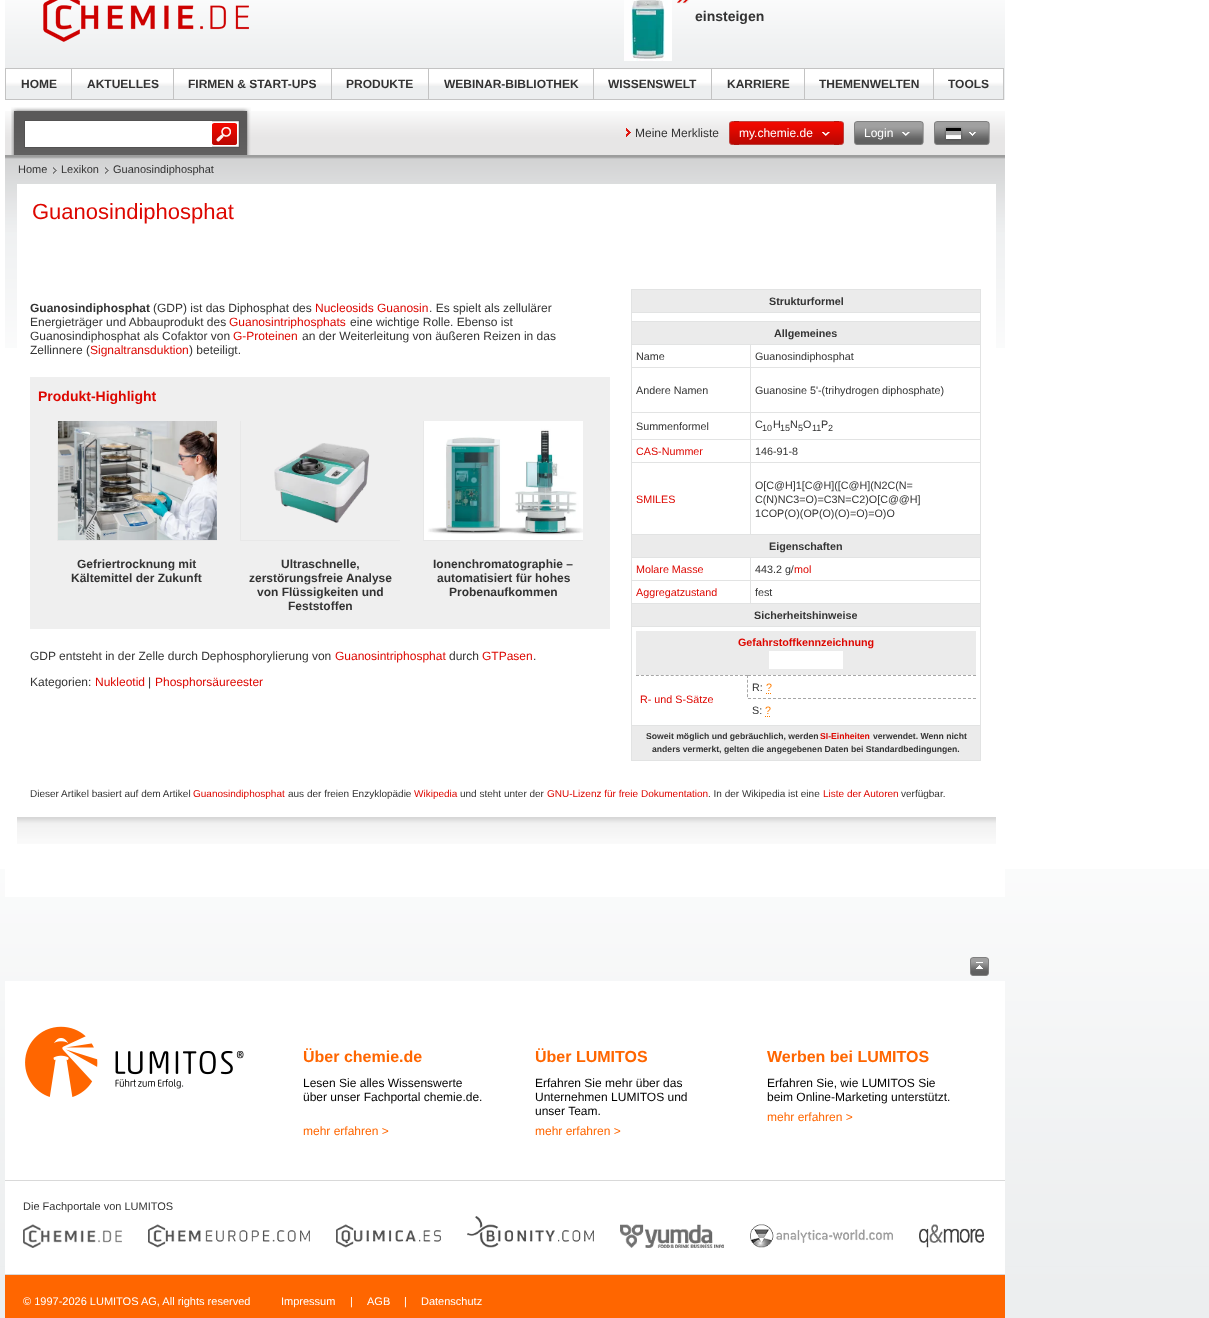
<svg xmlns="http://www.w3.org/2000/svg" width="1209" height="1318">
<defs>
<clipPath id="clip1"><rect x="57" y="421" width="160" height="120"/></clipPath>
<clipPath id="clip2"><rect x="240" y="421" width="160" height="120"/></clipPath>
<clipPath id="clip3"><rect x="423" y="421" width="160" height="120"/></clipPath>
</defs>
<rect width="100%" height="100%" fill="#fff"/>
<image x="0" y="869" width="1209" height="449" href="media/1.png"/>
<image x="5" y="0" width="1000" height="100" href="media/2.png"/>
<image x="43" y="0" width="206" height="42" href="media/3.png"/>
<image x="624" y="0" width="48" height="61" href="media/4.png"/>
<image x="677" y="0" width="12" height="4" href="media/5.png"/>
<text x="695" y="21" style="font-family:Liberation Sans;font-size:14px;font-weight:bold;fill:#333">einsteigen</text>
<rect x="5" y="68" width="999" height="1" fill="#c3c3c3"/>
<rect x="1003" y="68" width="1" height="32" fill="#c3c3c3"/>
<rect x="5" y="99" width="999" height="1" fill="#c3c3c3"/>
<image x="6" y="69" width="65" height="17" href="media/6.png"/>
<rect x="5" y="69" width="1" height="30" fill="#c3c3c3"/>
<text x="21" y="88" style="font-family:Liberation Sans;font-size:12px;font-weight:bold;fill:#333">HOME</text>
<image x="72" y="69" width="101" height="17" href="media/7.png"/>
<rect x="71" y="69" width="1" height="30" fill="#c3c3c3"/>
<text x="87" y="88" style="font-family:Liberation Sans;font-size:12px;font-weight:bold;fill:#333">AKTUELLES</text>
<image x="174" y="69" width="157" height="17" href="media/8.png"/>
<rect x="173" y="69" width="1" height="30" fill="#c3c3c3"/>
<text x="188" y="88" style="font-family:Liberation Sans;font-size:12px;font-weight:bold;fill:#333">FIRMEN &amp; START-UPS</text>
<image x="332" y="69" width="96" height="17" href="media/9.png"/>
<rect x="331" y="69" width="1" height="30" fill="#c3c3c3"/>
<text x="346" y="88" style="font-family:Liberation Sans;font-size:12px;font-weight:bold;fill:#333">PRODUKTE</text>
<image x="429" y="69" width="164" height="17" href="media/10.png"/>
<rect x="428" y="69" width="1" height="30" fill="#c3c3c3"/>
<text x="444" y="88" style="font-family:Liberation Sans;font-size:12px;font-weight:bold;fill:#333">WEBINAR-BIBLIOTHEK</text>
<image x="594" y="69" width="117" height="17" href="media/11.png"/>
<rect x="593" y="69" width="1" height="30" fill="#c3c3c3"/>
<text x="608" y="88" style="font-family:Liberation Sans;font-size:12px;font-weight:bold;fill:#333">WISSENSWELT</text>
<image x="712" y="69" width="92" height="17" href="media/12.png"/>
<rect x="711" y="69" width="1" height="30" fill="#c3c3c3"/>
<text x="727" y="88" style="font-family:Liberation Sans;font-size:12px;font-weight:bold;fill:#333">KARRIERE</text>
<image x="805" y="69" width="128" height="17" href="media/13.png"/>
<rect x="804" y="69" width="1" height="30" fill="#c3c3c3"/>
<text x="819" y="88" style="font-family:Liberation Sans;font-size:12px;font-weight:bold;fill:#333">THEMENWELTEN</text>
<image x="934" y="69" width="69" height="17" href="media/14.png"/>
<rect x="933" y="69" width="1" height="30" fill="#c3c3c3"/>
<text x="948" y="88" style="font-family:Liberation Sans;font-size:12px;font-weight:bold;fill:#333">TOOLS</text>
<rect x="5" y="869" width="1000" height="28" fill="#fff"/>
<image x="5" y="111" width="1000" height="237" href="media/15.png"/>
<image x="11" y="107" width="240" height="48" href="media/16.png"/>
<rect x="25" y="121" width="187" height="26" fill="#fff"/>
<rect x="24" y="120" width="188" height="1" fill="#535252"/>
<rect x="24" y="147" width="188" height="1" fill="#535252"/>
<rect x="24" y="120" width="1" height="28" fill="#535252"/>
<image x="212" y="120" width="28" height="28" href="media/17.png"/>
<image x="626" y="128" width="5" height="9" href="media/18.png"/>
<text x="635" y="137" style="font-family:Liberation Sans;font-size:12px;fill:#333">Meine Merkliste</text>
<image x="729" y="121" width="10" height="24" href="media/19.png"/>
<image x="834" y="121" width="10" height="24" href="media/20.png"/>
<image x="734" y="121" width="105" height="24" href="media/21.png"/>
<text x="739" y="137" style="font-family:Liberation Sans;font-size:12px;fill:#fff">my.chemie.de</text>
<image x="822" y="132" width="8" height="4" href="media/22.png"/>
<image x="854" y="121" width="10" height="24" href="media/23.png"/>
<image x="914" y="121" width="10" height="24" href="media/24.png"/>
<image x="864" y="121" width="50" height="24" href="media/25.png"/>
<text x="864" y="137" style="font-family:Liberation Sans;font-size:12px;fill:#fff">Login</text>
<image x="902" y="132" width="8" height="4" href="media/26.png"/>
<image x="934" y="121" width="10" height="24" href="media/23.png"/>
<image x="980" y="121" width="10" height="24" href="media/24.png"/>
<image x="944" y="121" width="36" height="24" href="media/27.png"/>
<image x="944" y="126" width="19" height="15" href="media/28.png"/>
<image x="969" y="132" width="7" height="4" href="media/29.png"/>
<text x="18" y="173" style="font-family:Liberation Sans;font-size:11px;fill:#333">Home</text>
<image x="53" y="167" width="4" height="7" href="media/30.png"/>
<text x="61" y="173" style="font-family:Liberation Sans;font-size:11px;fill:#333">Lexikon</text>
<image x="105" y="167" width="4" height="7" href="media/30.png"/>
<text x="113" y="173" style="font-family:Liberation Sans;font-size:11px;fill:#333">Guanosindiphosphat</text>
<rect x="17" y="184" width="979" height="164" fill="#fff"/>
<text x="32" y="219" style="font-family:Liberation Sans;font-size:22px;fill:#dd0700">Guanosindiphosphat</text>
<text x="30" y="312" style="font-family:Liberation Sans;font-size:12px;font-weight:bold;fill:#333">Guanosindiphosphat</text>
<text x="153" y="312" style="font-family:Liberation Sans;font-size:12px;fill:#333">(GDP) ist das Diphosphat des</text>
<text x="315" y="312" style="font-family:Liberation Sans;font-size:12px;fill:#dd0700">Nucleosids Guanosin</text>
<text x="429" y="312" style="font-family:Liberation Sans;font-size:12px;fill:#333">. Es spielt als zellulärer</text>
<text x="30" y="326" style="font-family:Liberation Sans;font-size:12px;fill:#333">Energieträger und Abbauprodukt des</text>
<text x="229" y="326" style="font-family:Liberation Sans;font-size:12px;fill:#dd0700">Guanosintriphosphats</text>
<text x="350" y="326" style="font-family:Liberation Sans;font-size:12px;fill:#333">eine wichtige Rolle. Ebenso ist</text>
<text x="30" y="340" style="font-family:Liberation Sans;font-size:12px;fill:#333">Guanosindiphosphat als Cofaktor von</text>
<text x="233" y="340" style="font-family:Liberation Sans;font-size:12px;fill:#dd0700">G-Proteinen</text>
<text x="302" y="340" style="font-family:Liberation Sans;font-size:12px;fill:#333">an der Weiterleitung von äußeren Reizen in das</text>
<text x="30" y="354" style="font-family:Liberation Sans;font-size:12px;fill:#333">Zellinnere (</text>
<text x="90" y="354" style="font-family:Liberation Sans;font-size:12px;fill:#dd0700">Signaltransduktion</text>
<text x="189" y="354" style="font-family:Liberation Sans;font-size:12px;fill:#333">) beteiligt.</text>
<rect x="631" y="289" width="350" height="1" fill="#e2e3e3"/>
<rect x="980" y="289" width="1" height="472" fill="#e2e3e3"/>
<rect x="631" y="760" width="350" height="1" fill="#e2e3e3"/>
<rect x="631" y="289" width="1" height="472" fill="#e2e3e3"/>
<rect x="632" y="290" width="348" height="22" fill="#ebebeb"/>
<text x="769" y="305" style="font-family:Liberation Sans;font-size:10.75px;font-weight:bold;fill:#333">Strukturformel</text>
<rect x="631" y="312" width="350" height="1" fill="#e2e3e3"/>
<rect x="632" y="322" width="348" height="22" fill="#ebebeb"/>
<rect x="631" y="321" width="350" height="1" fill="#e2e3e3"/>
<text x="774" y="337" style="font-family:Liberation Sans;font-size:10.75px;font-weight:bold;fill:#333">Allgemeines</text>
<rect x="750" y="344" width="231" height="1" fill="#e2e3e3"/>
<rect x="750" y="367" width="231" height="1" fill="#e2e3e3"/>
<rect x="750" y="412" width="231" height="1" fill="#e2e3e3"/>
<rect x="750" y="439" width="231" height="1" fill="#e2e3e3"/>
<rect x="750" y="462" width="231" height="1" fill="#e2e3e3"/>
<rect x="631" y="534" width="350" height="1" fill="#e2e3e3"/>
<rect x="750" y="462" width="1" height="73" fill="#e2e3e3"/>
<rect x="631" y="462" width="120" height="1" fill="#e2e3e3"/>
<rect x="750" y="439" width="1" height="24" fill="#e2e3e3"/>
<rect x="631" y="439" width="120" height="1" fill="#e2e3e3"/>
<rect x="750" y="412" width="1" height="28" fill="#e2e3e3"/>
<rect x="631" y="412" width="120" height="1" fill="#e2e3e3"/>
<rect x="750" y="367" width="1" height="46" fill="#e2e3e3"/>
<rect x="631" y="367" width="120" height="1" fill="#e2e3e3"/>
<rect x="750" y="344" width="1" height="24" fill="#e2e3e3"/>
<rect x="631" y="344" width="120" height="1" fill="#e2e3e3"/>
<text x="636" y="360" style="font-family:Liberation Sans;font-size:10.75px;fill:#333">Name</text>
<text x="755" y="360" style="font-family:Liberation Sans;font-size:10.75px;fill:#333">Guanosindiphosphat</text>
<text x="636" y="394" style="font-family:Liberation Sans;font-size:10.75px;fill:#333">Andere Namen</text>
<text x="755" y="394" style="font-family:Liberation Sans;font-size:10.75px;fill:#333">Guanosine 5'-(trihydrogen diphosphate)</text>
<text x="636" y="430" style="font-family:Liberation Sans;font-size:10.75px;fill:#333">Summenformel</text>
<text x="755" y="428" style="font-family:Liberation Sans;font-size:10.75px;fill:#333">C</text>
<text x="762" y="431" style="font-family:Liberation Sans;font-size:9px;fill:#333">10</text>
<text x="773" y="428" style="font-family:Liberation Sans;font-size:10.75px;fill:#333">H</text>
<text x="780" y="431" style="font-family:Liberation Sans;font-size:9px;fill:#333">15</text>
<text x="790" y="428" style="font-family:Liberation Sans;font-size:10.75px;fill:#333">N</text>
<text x="798" y="431" style="font-family:Liberation Sans;font-size:9px;fill:#333">5</text>
<text x="803" y="428" style="font-family:Liberation Sans;font-size:10.75px;fill:#333">O</text>
<text x="812" y="431" style="font-family:Liberation Sans;font-size:9px;fill:#333">11</text>
<text x="821" y="428" style="font-family:Liberation Sans;font-size:10.75px;fill:#333">P</text>
<text x="828" y="431" style="font-family:Liberation Sans;font-size:9px;fill:#333">2</text>
<text x="636" y="455" style="font-family:Liberation Sans;font-size:10.75px;fill:#dd0700">CAS-Nummer</text>
<text x="755" y="455" style="font-family:Liberation Sans;font-size:10.75px;fill:#333">146-91-8</text>
<text x="636" y="503" style="font-family:Liberation Sans;font-size:10.75px;fill:#dd0700">SMILES</text>
<text x="755" y="489" style="font-family:Liberation Sans;font-size:10.75px;fill:#333">O[C@H]1[C@H]([C@H](N2C(N=</text>
<text x="755" y="503" style="font-family:Liberation Sans;font-size:10.75px;fill:#333">C(N)NC3=O)=C3N=C2)O[C@@H]</text>
<text x="755" y="517" style="font-family:Liberation Sans;font-size:10.75px;fill:#333">1COP(O)(OP(O)(O)=O)=O)O</text>
<rect x="632" y="535" width="348" height="22" fill="#ebebeb"/>
<text x="769" y="550" style="font-family:Liberation Sans;font-size:10.75px;font-weight:bold;fill:#333">Eigenschaften</text>
<rect x="750" y="557" width="231" height="1" fill="#e2e3e3"/>
<rect x="750" y="580" width="231" height="1" fill="#e2e3e3"/>
<rect x="631" y="603" width="350" height="1" fill="#e2e3e3"/>
<rect x="750" y="580" width="1" height="24" fill="#e2e3e3"/>
<rect x="631" y="580" width="120" height="1" fill="#e2e3e3"/>
<rect x="750" y="557" width="1" height="24" fill="#e2e3e3"/>
<rect x="631" y="557" width="120" height="1" fill="#e2e3e3"/>
<text x="636" y="573" style="font-family:Liberation Sans;font-size:10.75px;fill:#dd0700">Molare Masse</text>
<text x="755" y="573" style="font-family:Liberation Sans;font-size:10.75px;fill:#333">443.2 g/</text>
<text x="794" y="573" style="font-family:Liberation Sans;font-size:10.75px;fill:#dd0700">mol</text>
<text x="636" y="596" style="font-family:Liberation Sans;font-size:10.75px;fill:#dd0700">Aggregatzustand</text>
<text x="755" y="596" style="font-family:Liberation Sans;font-size:10.75px;fill:#333">fest</text>
<rect x="632" y="604" width="348" height="22" fill="#ebebeb"/>
<text x="754" y="619" style="font-family:Liberation Sans;font-size:10.75px;font-weight:bold;fill:#333">Sicherheitshinweise</text>
<rect x="631" y="626" width="350" height="1" fill="#e2e3e3"/>
<rect x="636" y="631" width="340" height="44" fill="#ebebeb"/>
<text x="738" y="646" style="font-family:Liberation Sans;font-size:10.75px;font-weight:bold;fill:#dd0700">Gefahrstoffkennzeichnung</text>
<rect x="769" y="651" width="74" height="18" fill="#fff"/>
<path d="M748 675.5h228" fill="none" stroke="#a7a7a7" stroke-dasharray="3 2"/>
<text x="752" y="691" style="font-family:Liberation Sans;font-size:10.75px;fill:#333">R:</text>
<text x="766" y="691" style="font-family:Liberation Sans;font-size:10.75px;fill:#ff7d00">?</text>
<path d="M766 693.5h1m1 0h1m1 0h1" fill="none" stroke="#ff7d00"/>
<path d="M636 675.5h112" fill="none" stroke="#a7a7a7" stroke-dasharray="3 1.95"/>
<path d="M747.5 675v46" fill="none" stroke="#a7a7a7" stroke-dasharray="3 1.78"/>
<text x="640" y="703" style="font-family:Liberation Sans;font-size:10.75px;fill:#dd0700">R- und S-Sätze</text>
<rect x="747" y="698" width="1" height="23" fill="#fff"/>
<path d="M748 698.5h228" fill="none" stroke="#a7a7a7" stroke-dasharray="3 2"/>
<text x="752" y="714" style="font-family:Liberation Sans;font-size:10.75px;fill:#333">S:</text>
<text x="765" y="714" style="font-family:Liberation Sans;font-size:10.75px;fill:#ff7d00">?</text>
<path d="M765 716.5h1m1 0h1m1 0h1" fill="none" stroke="#ff7d00"/>
<rect x="632" y="726" width="348" height="34" fill="#ebebeb"/>
<rect x="631" y="725" width="350" height="1" fill="#e2e3e3"/>
<text x="646" y="739" style="font-family:Liberation Sans;font-size:8.65px;font-weight:bold;fill:#333">Soweit möglich und gebräuchlich, werden</text>
<text x="820" y="739" style="font-family:Liberation Sans;font-size:8.65px;font-weight:bold;fill:#dd0700">SI-Einheiten</text>
<text x="873" y="739" style="font-family:Liberation Sans;font-size:8.65px;font-weight:bold;fill:#333">verwendet. Wenn nicht</text>
<text x="652" y="752" style="font-family:Liberation Sans;font-size:8.65px;font-weight:bold;fill:#333">anders vermerkt, gelten die angegebenen Daten bei Standardbedingungen.</text>
<rect x="30" y="377" width="580" height="252" fill="#efefef"/>
<text x="38" y="401" style="font-family:Liberation Sans;font-size:14px;font-weight:bold;fill:#dd0700">Produkt-Highlight</text>
<g clip-path="url(#clip1)">
<rect x="57.5" y="419.5" width="161" height="121" fill="none" stroke="#e8e8e8"/>
</g>
<image x="58" y="421" width="159" height="119" href="media/31.png"/>
<text x="77" y="568" style="font-family:Liberation Sans;font-size:12px;font-weight:bold;fill:#333">Gefriertrocknung mit</text>
<text x="71" y="582" style="font-family:Liberation Sans;font-size:12px;font-weight:bold;fill:#333">Kältemittel der Zukunft</text>
<g clip-path="url(#clip2)">
<rect x="240.5" y="419.5" width="161" height="121" fill="none" stroke="#e8e8e8"/>
</g>
<image x="274" y="443" width="96" height="80" href="media/32.png"/>
<text x="281" y="568" style="font-family:Liberation Sans;font-size:12px;font-weight:bold;fill:#333">Ultraschnelle,</text>
<text x="249" y="582" style="font-family:Liberation Sans;font-size:12px;font-weight:bold;fill:#333">zerstörungsfreie Analyse</text>
<text x="257" y="596" style="font-family:Liberation Sans;font-size:12px;font-weight:bold;fill:#333">von Flüssigkeiten und</text>
<text x="288" y="610" style="font-family:Liberation Sans;font-size:12px;font-weight:bold;fill:#333">Feststoffen</text>
<g clip-path="url(#clip3)">
<rect x="423.5" y="419.5" width="171" height="121" fill="none" stroke="#e8e8e8"/>
</g>
<image x="424" y="421" width="159" height="119" href="media/33.png"/>
<text x="433" y="568" style="font-family:Liberation Sans;font-size:12px;font-weight:bold;fill:#333">Ionenchromatographie –</text>
<text x="437" y="582" style="font-family:Liberation Sans;font-size:12px;font-weight:bold;fill:#333">automatisiert für hohes</text>
<text x="449" y="596" style="font-family:Liberation Sans;font-size:12px;font-weight:bold;fill:#333">Probenaufkommen</text>
<text x="30" y="660" style="font-family:Liberation Sans;font-size:12px;fill:#333">GDP entsteht in der Zelle durch Dephosphorylierung von</text>
<text x="335" y="660" style="font-family:Liberation Sans;font-size:12px;fill:#dd0700">Guanosintriphosphat</text>
<text x="449" y="660" style="font-family:Liberation Sans;font-size:12px;fill:#333">durch</text>
<text x="482" y="660" style="font-family:Liberation Sans;font-size:12px;fill:#dd0700">GTPasen</text>
<text x="533" y="660" style="font-family:Liberation Sans;font-size:12px;fill:#333">.</text>
<text x="30" y="686" style="font-family:Liberation Sans;font-size:12px;fill:#333">Kategorien:</text>
<text x="95" y="686" style="font-family:Liberation Sans;font-size:12px;fill:#dd0700">Nukleotid</text>
<text x="148" y="686" style="font-family:Liberation Sans;font-size:12px;fill:#333">|</text>
<text x="155" y="686" style="font-family:Liberation Sans;font-size:12px;fill:#dd0700">Phosphorsäureester</text>
<text x="30" y="797" style="font-family:Liberation Sans;font-size:10px;fill:#333">Dieser Artikel basiert auf dem Artikel</text>
<text x="193" y="797" style="font-family:Liberation Sans;font-size:10px;fill:#dd0700">Guanosindiphosphat</text>
<text x="288" y="797" style="font-family:Liberation Sans;font-size:10px;fill:#333">aus der freien Enzyklopädie</text>
<text x="414" y="797" style="font-family:Liberation Sans;font-size:10px;fill:#dd0700">Wikipedia</text>
<text x="460" y="797" style="font-family:Liberation Sans;font-size:10px;fill:#333">und steht unter der</text>
<text x="547" y="797" style="font-family:Liberation Sans;font-size:10px;fill:#dd0700">GNU-Lizenz für freie Dokumentation</text>
<text x="708" y="797" style="font-family:Liberation Sans;font-size:10px;fill:#333">. In der Wikipedia ist eine</text>
<text x="823" y="797" style="font-family:Liberation Sans;font-size:10px;fill:#dd0700">Liste der Autoren</text>
<text x="901" y="797" style="font-family:Liberation Sans;font-size:10px;fill:#333">verfügbar.</text>
<image x="17" y="817" width="979" height="27" href="media/34.png"/>
<image x="970" y="957" width="19" height="19" href="media/35.png"/>
<rect x="5" y="981" width="1000" height="293" fill="#fff"/>
<image x="25" y="1026" width="219" height="71" href="media/36.png"/>
<text x="303" y="1062" style="font-family:Liberation Sans;font-size:16px;font-weight:bold;fill:#f60">Über chemie.de</text>
<text x="303" y="1087" style="font-family:Liberation Sans;font-size:12px;fill:#000">Lesen Sie alles Wissenswerte</text>
<text x="303" y="1101" style="font-family:Liberation Sans;font-size:12px;fill:#000">über unser Fachportal chemie.de.</text>
<text x="303" y="1135" style="font-family:Liberation Sans;font-size:12px;fill:#f60">mehr erfahren &gt;</text>
<text x="535" y="1062" style="font-family:Liberation Sans;font-size:16px;font-weight:bold;fill:#f60">Über LUMITOS</text>
<text x="535" y="1087" style="font-family:Liberation Sans;font-size:12px;fill:#000">Erfahren Sie mehr über das</text>
<text x="535" y="1101" style="font-family:Liberation Sans;font-size:12px;fill:#000">Unternehmen LUMITOS und</text>
<text x="535" y="1115" style="font-family:Liberation Sans;font-size:12px;fill:#000">unser Team.</text>
<text x="535" y="1135" style="font-family:Liberation Sans;font-size:12px;fill:#f60">mehr erfahren &gt;</text>
<text x="767" y="1062" style="font-family:Liberation Sans;font-size:16px;font-weight:bold;fill:#f60">Werben bei LUMITOS</text>
<text x="767" y="1087" style="font-family:Liberation Sans;font-size:12px;fill:#000">Erfahren Sie, wie LUMITOS Sie</text>
<text x="767" y="1101" style="font-family:Liberation Sans;font-size:12px;fill:#000">beim Online-Marketing unterstützt.</text>
<text x="767" y="1121" style="font-family:Liberation Sans;font-size:12px;fill:#f60">mehr erfahren &gt;</text>
<rect x="5" y="1180" width="1000" height="1" fill="#d9d9d9"/>
<text x="23" y="1210" style="font-family:Liberation Sans;font-size:11px;fill:#333">Die Fachportale von LUMITOS</text>
<image x="23" y="1224" width="99" height="24" href="media/37.png"/>
<image x="148" y="1224" width="162" height="24" href="media/38.png"/>
<image x="336" y="1224" width="105" height="24" href="media/39.png"/>
<image x="467" y="1216" width="127" height="32" href="media/40.png"/>
<image x="620" y="1224" width="104" height="24" href="media/41.png"/>
<image x="750" y="1224" width="143" height="24" href="media/42.png"/>
<image x="919" y="1224" width="65" height="24" href="media/43.png"/>
<rect x="5" y="1275" width="1000" height="43" fill="#f60"/>
<rect x="5" y="1274" width="1000" height="1" fill="#d9d9d9"/>
<text x="23" y="1305" style="font-family:Liberation Sans;font-size:11px;fill:#fff">© 1997-2026 LUMITOS AG, All rights reserved</text>
<text x="281" y="1305" style="font-family:Liberation Sans;font-size:11px;fill:#fff">Impressum</text>
<text x="350" y="1305" style="font-family:Liberation Sans;font-size:11px;fill:#fff">|</text>
<text x="367" y="1305" style="font-family:Liberation Sans;font-size:11px;fill:#fff">AGB</text>
<text x="404" y="1305" style="font-family:Liberation Sans;font-size:11px;fill:#fff">|</text>
<text x="421" y="1305" style="font-family:Liberation Sans;font-size:11px;fill:#fff">Datenschutz</text>
</svg>
